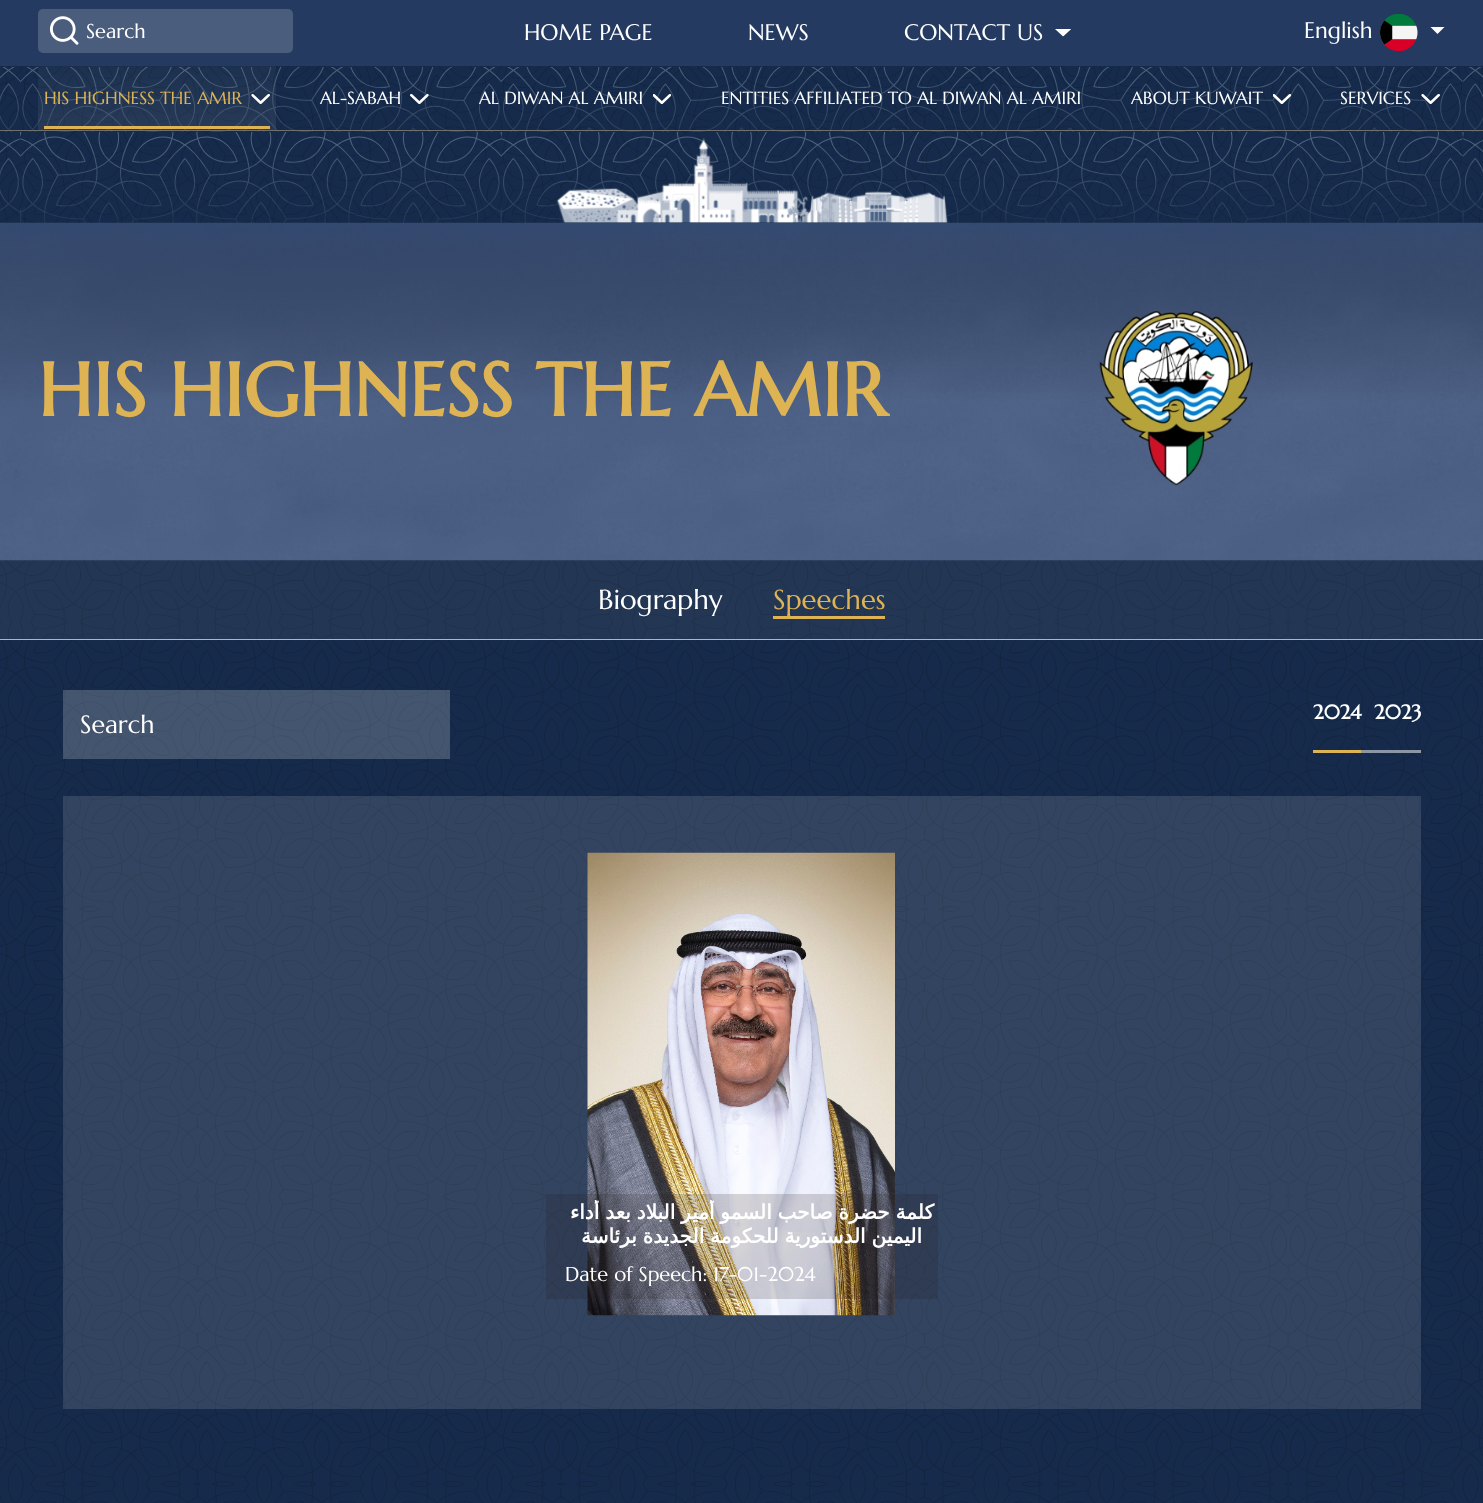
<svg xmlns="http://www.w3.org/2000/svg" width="1483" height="1503">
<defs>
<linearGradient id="g1" gradientUnits="userSpaceOnUse" x1="157" y1="164" x2="157" y2="31"><stop offset="0" stop-color="#fff" stop-opacity="0.1"/><stop offset="1" stop-color="#fff" stop-opacity="0"/></linearGradient>
<clipPath id="clip1"><rect x="565" y="1200" width="373" height="48"/></clipPath>
</defs>
<rect width="100%" height="100%" fill="#162b4b"/>
<image x="0" y="66" width="1483" height="1437" href="media/1.png"/>
<rect width="1483" height="66" fill="#243a61"/>
<rect x="38" y="9" width="255" height="44" rx="5" fill="#4b5d7d"/>
<image x="50" y="16" width="29" height="29" href="media/2.png"/>
<text x="86" y="38" style="font-family:Marcellus;font-size:20px;fill:#fff">Search</text>
<text x="524" y="40" style="font-family:Marcellus;font-size:22.5px;fill:#fff">HOME PAGE</text>
<text x="748" y="40" style="font-family:Marcellus;font-size:22.5px;fill:#fff">NEWS</text>
<text x="904" y="40" style="font-family:Marcellus;font-size:22.5px;fill:#fff">CONTACT US</text>
<image x="1055" y="29" width="16" height="8" href="media/3.png"/>
<text x="1304" y="38" style="font-family:Marcellus;font-size:22.5px;fill:#fff">English</text>
<image x="1380" y="14" width="38" height="37" href="media/4.png"/>
<image x="1430" y="27" width="15" height="7" href="media/5.png"/>
<image x="0" y="67" width="1483" height="65" href="media/6.png"/>
<rect y="130" width="1483" height="1" fill="#707070"/>
<rect x="38" y="66" width="238" height="64" fill="url(#g1)"/>
<text x="44" y="104" style="font-family:Marcellus;font-size:17.5px;fill:#deb353">HIS HIGHNESS THE AMIR</text>
<image x="251" y="94" width="19" height="10" href="media/7.png"/>
<rect x="44" y="126" width="226" height="3" fill="#deb353"/>
<text x="320" y="104" style="font-family:Marcellus;font-size:17.5px;fill:#fff">AL-SABAH</text>
<image x="410" y="94" width="19" height="10" href="media/8.png"/>
<text x="479" y="104" style="font-family:Marcellus;font-size:17.5px;fill:#fff">AL DIWAN AL AMIRI</text>
<image x="653" y="94" width="18" height="10" href="media/9.png"/>
<text x="721" y="104" style="font-family:Marcellus;font-size:17.5px;fill:#fff">ENTITIES AFFILIATED TO AL DIWAN AL AMIRI</text>
<text x="1131" y="104" style="font-family:Marcellus;font-size:17.5px;fill:#fff">ABOUT KUWAIT</text>
<image x="1273" y="94" width="18" height="10" href="media/10.png"/>
<text x="1340" y="104" style="font-family:Marcellus;font-size:17.5px;fill:#fff">SERVICES</text>
<image x="1421" y="94" width="19" height="10" href="media/11.png"/>
<rect y="560" width="1483" height="79" fill="#ffffff0f"/>
<image x="0" y="222" width="1483" height="339" href="media/14.png"/>
<image x="0" y="132" width="1483" height="91" href="media/12.png"/>
<image x="556" y="138" width="392" height="85" href="media/13.png"/>
<text x="38" y="416" style="font-family:Marcellus;font-size:75px;font-weight:bold;fill:#deb353">HIS HIGHNESS THE AMIR</text>
<rect y="639" width="1483" height="1" fill="#deb353"/>
<text x="598" y="609" style="font-family:Marcellus;font-size:27.5px;fill:#fff">Biography</text>
<text x="773" y="609" style="font-family:Marcellus;font-size:27.5px;fill:#deb353">Speeches</text>
<rect x="773" y="616" width="112" height="3" fill="#deb353"/>
<rect x="63" y="690" width="387" height="69" fill="#ffffff33"/>
<text x="80" y="733" style="font-family:Marcellus;font-size:25px;fill:#fff">Search</text>
<rect x="1361" y="750" width="60" height="3" fill="#dee2e696"/>
<text x="1313" y="719" style="font-family:Marcellus;font-size:20px;font-weight:bold;fill:#fff">2024</text>
<rect x="1313" y="750" width="48" height="3" fill="#deb353"/>
<text x="1374" y="719" style="font-family:Marcellus;font-size:20px;font-weight:bold;fill:#fff">2023</text>
<rect x="63" y="796" width="1358" height="613" fill="#ffffff1f"/>
<image x="587" y="852" width="308" height="464" href="media/15.png"/>
<rect x="546" y="1194" width="392" height="105" fill="#2919192e"/>
<g clip-path="url(#clip1)">
<text x="934" y="1219" word-spacing="-0.5" style="font-family:DejaVu Sans;font-size:20px;font-weight:bold;direction:rtl;fill:#fff">كلمة حضرة صاحب السمو أمير البلاد بعد أداء</text>
</g>
<text x="922" y="1243" word-spacing="-0.5" style="font-family:DejaVu Sans;font-size:20px;font-weight:bold;direction:rtl;fill:#fff">اليمين الدستورية للحكومة الجديدة برئاسة</text>
<text x="565" y="1281" style="font-family:Marcellus;font-size:20px;fill:#fff">Date of Speech: 17-01-2024</text>
</svg>
